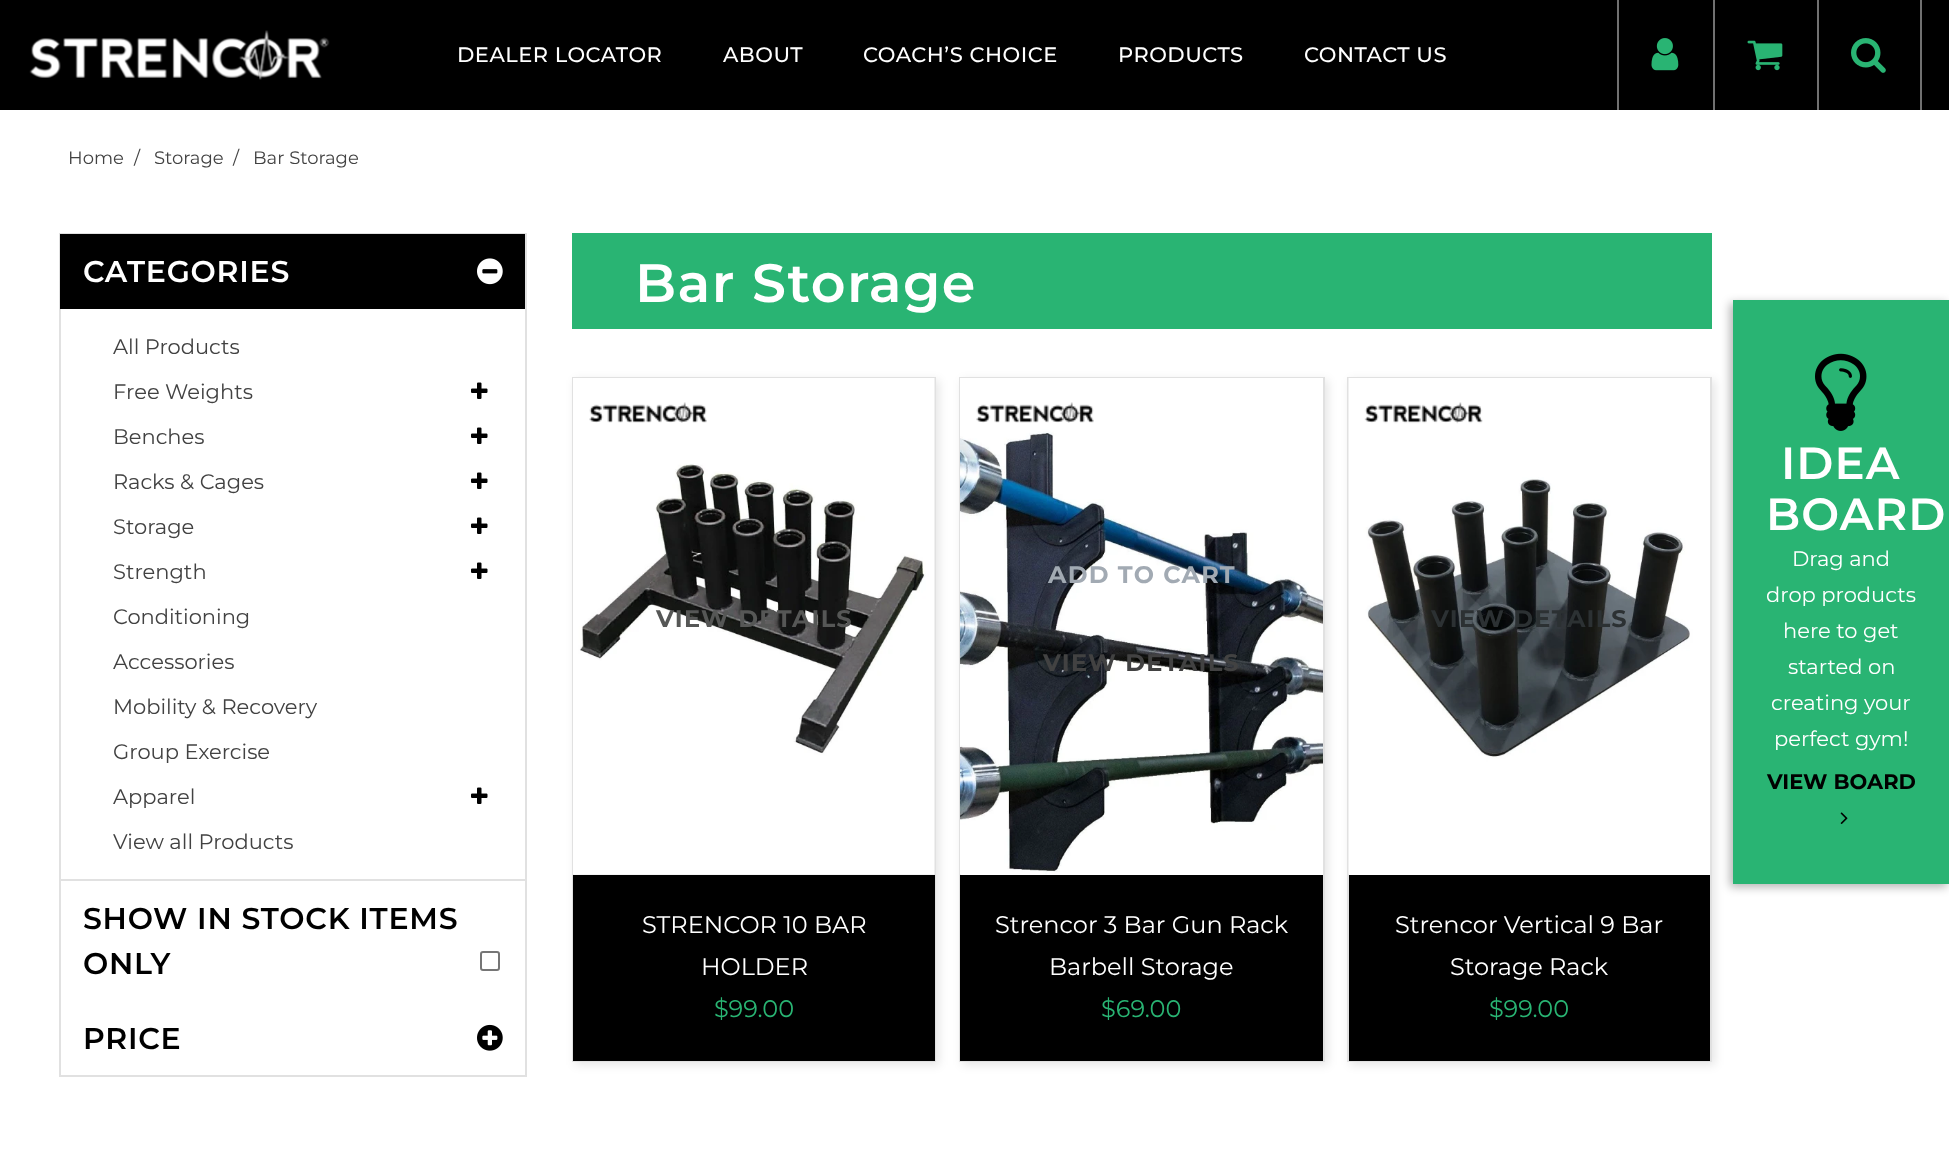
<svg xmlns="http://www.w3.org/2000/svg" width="1949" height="1149">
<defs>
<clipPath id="clip1"><rect x="60" y="234" width="465" height="75"/></clipPath>
</defs>
<rect width="100%" height="100%" fill="#000"/>
<image x="29" y="30" width="301" height="50" href="media/1.png"/>
<text x="457" y="62" style="font-family:Montserrat;font-size:21px;font-weight:500;letter-spacing:0.5px;fill:#fff">DEALER LOCATOR</text>
<text x="723" y="62" style="font-family:Montserrat;font-size:21px;font-weight:500;letter-spacing:0.5px;fill:#fff">ABOUT</text>
<text x="863" y="62" style="font-family:Montserrat;font-size:21px;font-weight:500;letter-spacing:0.5px;fill:#fff">COACH’S CHOICE</text>
<text x="1118" y="62" style="font-family:Montserrat;font-size:21px;font-weight:500;letter-spacing:0.5px;fill:#fff">PRODUCTS</text>
<text x="1304" y="62" style="font-family:Montserrat;font-size:21px;font-weight:500;letter-spacing:0.5px;fill:#fff">CONTACT US</text>
<rect x="1920" width="2" height="110" fill="#717171"/>
<rect x="1617" width="2" height="110" fill="#717171"/>
<image x="1651" y="38" width="28" height="33" href="media/2.png"/>
<rect x="1713" width="2" height="110" fill="#717171"/>
<image x="1747" y="40" width="36" height="31" href="media/3.png"/>
<rect x="1817" width="2" height="110" fill="#717171"/>
<image x="1851" y="38" width="35" height="35" href="media/4.png"/>
<rect y="110" width="1949" height="70" fill="#fff"/>
<text x="68" y="164" style="font-family:Montserrat;font-size:18px;fill:#424242">Home</text>
<text x="134" y="164" style="font-family:Montserrat;font-size:18px;fill:#424242">/</text>
<text x="154" y="164" style="font-family:Montserrat;font-size:18px;fill:#424242">Storage</text>
<text x="233" y="164" style="font-family:Montserrat;font-size:18px;fill:#424242">/</text>
<text x="253" y="164" style="font-family:Montserrat;font-size:18px;fill:#424242">Bar Storage</text>
<rect y="180" width="1949" height="969" fill="#fff"/>
<rect x="60" y="234" width="466" height="842" fill="none" stroke="#e1e1e1" stroke-width="2"/>
<g clip-path="url(#clip1)">
<path d="M16 226h605l-33 90h-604z" fill="#000"/>
</g>
<text x="83" y="282" style="font-family:Montserrat;font-size:30px;font-weight:600;letter-spacing:0.75px;fill:#fff">CATEGORIES</text>
<image x="477" y="258" width="26" height="27" href="media/5.png"/>
<rect x="60" y="879" width="465" height="2" fill="#e1e1e1"/>
<text x="113" y="354" style="font-family:Montserrat;font-size:21px;fill:#424242">All Products</text>
<text x="113" y="399" style="font-family:Montserrat;font-size:21px;fill:#424242">Free Weights</text>
<image x="471" y="382" width="17" height="17" href="media/6.png"/>
<text x="113" y="444" style="font-family:Montserrat;font-size:21px;fill:#424242">Benches</text>
<image x="471" y="427" width="17" height="17" href="media/6.png"/>
<text x="113" y="489" style="font-family:Montserrat;font-size:21px;fill:#424242">Racks &amp; Cages</text>
<image x="471" y="472" width="17" height="17" href="media/6.png"/>
<text x="113" y="534" style="font-family:Montserrat;font-size:21px;fill:#424242">Storage</text>
<image x="471" y="517" width="17" height="17" href="media/6.png"/>
<text x="113" y="579" style="font-family:Montserrat;font-size:21px;fill:#424242">Strength</text>
<image x="471" y="562" width="17" height="17" href="media/6.png"/>
<text x="113" y="624" style="font-family:Montserrat;font-size:21px;fill:#424242">Conditioning</text>
<text x="113" y="669" style="font-family:Montserrat;font-size:21px;fill:#424242">Accessories</text>
<text x="113" y="714" style="font-family:Montserrat;font-size:21px;fill:#424242">Mobility &amp; Recovery</text>
<text x="113" y="759" style="font-family:Montserrat;font-size:21px;fill:#424242">Group Exercise</text>
<text x="113" y="804" style="font-family:Montserrat;font-size:21px;fill:#424242">Apparel</text>
<image x="471" y="787" width="17" height="17" href="media/6.png"/>
<text x="113" y="849" style="font-family:Montserrat;font-size:21px;fill:#424242">View all Products</text>
<text x="83" y="929" style="font-family:Montserrat;font-size:30px;font-weight:600;letter-spacing:0.75px;fill:#000">SHOW IN STOCK ITEMS</text>
<text x="83" y="974" style="font-family:Montserrat;font-size:30px;font-weight:600;letter-spacing:0.75px;fill:#000">ONLY</text>
<rect x="481" y="952" width="18" height="18" rx="2" fill="none" stroke="#767676" stroke-width="2"/>
<text x="83" y="1049" style="font-family:Montserrat;font-size:30px;font-weight:600;letter-spacing:0.75px;fill:#000">PRICE</text>
<image x="477" y="1024" width="26" height="27" href="media/7.png"/>
<rect x="572" y="233" width="1140" height="96" fill="#29b473"/>
<text x="635" y="302" style="font-family:Montserrat;font-size:54px;font-weight:600;letter-spacing:1.4px;fill:#fff">Bar Storage</text>
<rect x="575" y="380" width="364" height="685" fill="#0000001a" filter="blur(5px)"/>
<rect x="573" y="378" width="362" height="683" fill="none" stroke="#e1e1e1" stroke-width="2"/>
<image x="573" y="378" width="362" height="497" href="media/8.png"/>
<image x="589" y="402" width="118" height="21" href="media/9.png"/>
<text x="656" y="627" style="font-family:Montserrat;font-size:24px;font-weight:bold;letter-spacing:1.25px;fill:#565756">VIEW DETAILS</text>
<rect x="573" y="875" width="362" height="186" fill="#000"/>
<text x="642" y="933" style="font-family:Montserrat;font-size:24px;fill:#fff">STRENCOR 10 BAR</text>
<text x="701" y="975" style="font-family:Montserrat;font-size:24px;fill:#fff">HOLDER</text>
<text x="714" y="1017" style="font-family:Montserrat;font-size:24px;fill:#29b473">$99.00</text>
<rect x="962" y="380" width="366" height="685" fill="#0000001a" filter="blur(5px)"/>
<rect x="961" y="874" width="362" height="1" fill="#fff"/>
<rect x="960" y="378" width="364" height="683" fill="none" stroke="#e1e1e1" stroke-width="2"/>
<image x="960" y="378" width="363" height="497" href="media/10.png"/>
<image x="976" y="402" width="118" height="21" href="media/11.png"/>
<text x="1048" y="583" style="font-family:Montserrat;font-size:24px;font-weight:bold;letter-spacing:1.25px;fill:#a2aab3">ADD TO CART</text>
<text x="1043" y="671" style="font-family:Montserrat;font-size:24px;font-weight:bold;letter-spacing:1.25px;fill:#424242">VIEW DETAILS</text>
<rect x="960" y="875" width="363" height="186" fill="#000"/>
<text x="995" y="933" style="font-family:Montserrat;font-size:24px;fill:#fff">Strencor 3 Bar Gun Rack</text>
<text x="1049" y="975" style="font-family:Montserrat;font-size:24px;fill:#fff">Barbell Storage</text>
<text x="1101" y="1017" style="font-family:Montserrat;font-size:24px;fill:#29b473">$69.00</text>
<rect x="1350" y="380" width="365" height="685" fill="#0000001a" filter="blur(5px)"/>
<rect x="1349" y="874" width="361" height="1" fill="#fff"/>
<rect x="1348" y="378" width="363" height="683" fill="none" stroke="#e1e1e1" stroke-width="2"/>
<image x="1348" y="378" width="362" height="497" href="media/12.png"/>
<image x="1364" y="402" width="119" height="22" href="media/13.png"/>
<text x="1431" y="627" style="font-family:Montserrat;font-size:24px;font-weight:bold;letter-spacing:1.25px;fill:#2c3133">VIEW DETAILS</text>
<rect x="1349" y="875" width="361" height="186" fill="#000"/>
<text x="1395" y="933" style="font-family:Montserrat;font-size:24px;fill:#fff">Strencor Vertical 9 Bar</text>
<text x="1450" y="975" style="font-family:Montserrat;font-size:24px;fill:#fff">Storage Rack</text>
<text x="1489" y="1017" style="font-family:Montserrat;font-size:24px;fill:#29b473">$99.00</text>
<rect x="1730" y="303" width="217" height="584" fill="#0000004d" filter="blur(5px)"/>
<rect x="1733" y="300" width="216" height="584" fill="#29b473"/>
<image x="1815" y="353" width="52" height="78" href="media/14.png"/>
<text x="1781" y="479" style="font-family:Montserrat;font-size:45px;font-weight:600;letter-spacing:1px;fill:#fff">IDEA</text>
<text x="1766" y="530" style="font-family:Montserrat;font-size:45px;font-weight:600;letter-spacing:1px;fill:#fff">BOARD</text>
<text x="1792" y="566" style="font-family:Montserrat;font-size:21px;fill:#fff">Drag and</text>
<text x="1766" y="602" style="font-family:Montserrat;font-size:21px;fill:#fff">drop products</text>
<text x="1783" y="638" style="font-family:Montserrat;font-size:21px;fill:#fff">here to get</text>
<text x="1788" y="674" style="font-family:Montserrat;font-size:21px;fill:#fff">started on</text>
<text x="1771" y="710" style="font-family:Montserrat;font-size:21px;fill:#fff">creating your</text>
<text x="1774" y="746" style="font-family:Montserrat;font-size:21px;fill:#fff">perfect gym!</text>
<text x="1767" y="789" style="font-family:Montserrat;font-size:21px;font-weight:bold;fill:#000">VIEW BOARD</text>
<image x="1840" y="812" width="8" height="12" href="media/15.png"/>
</svg>
